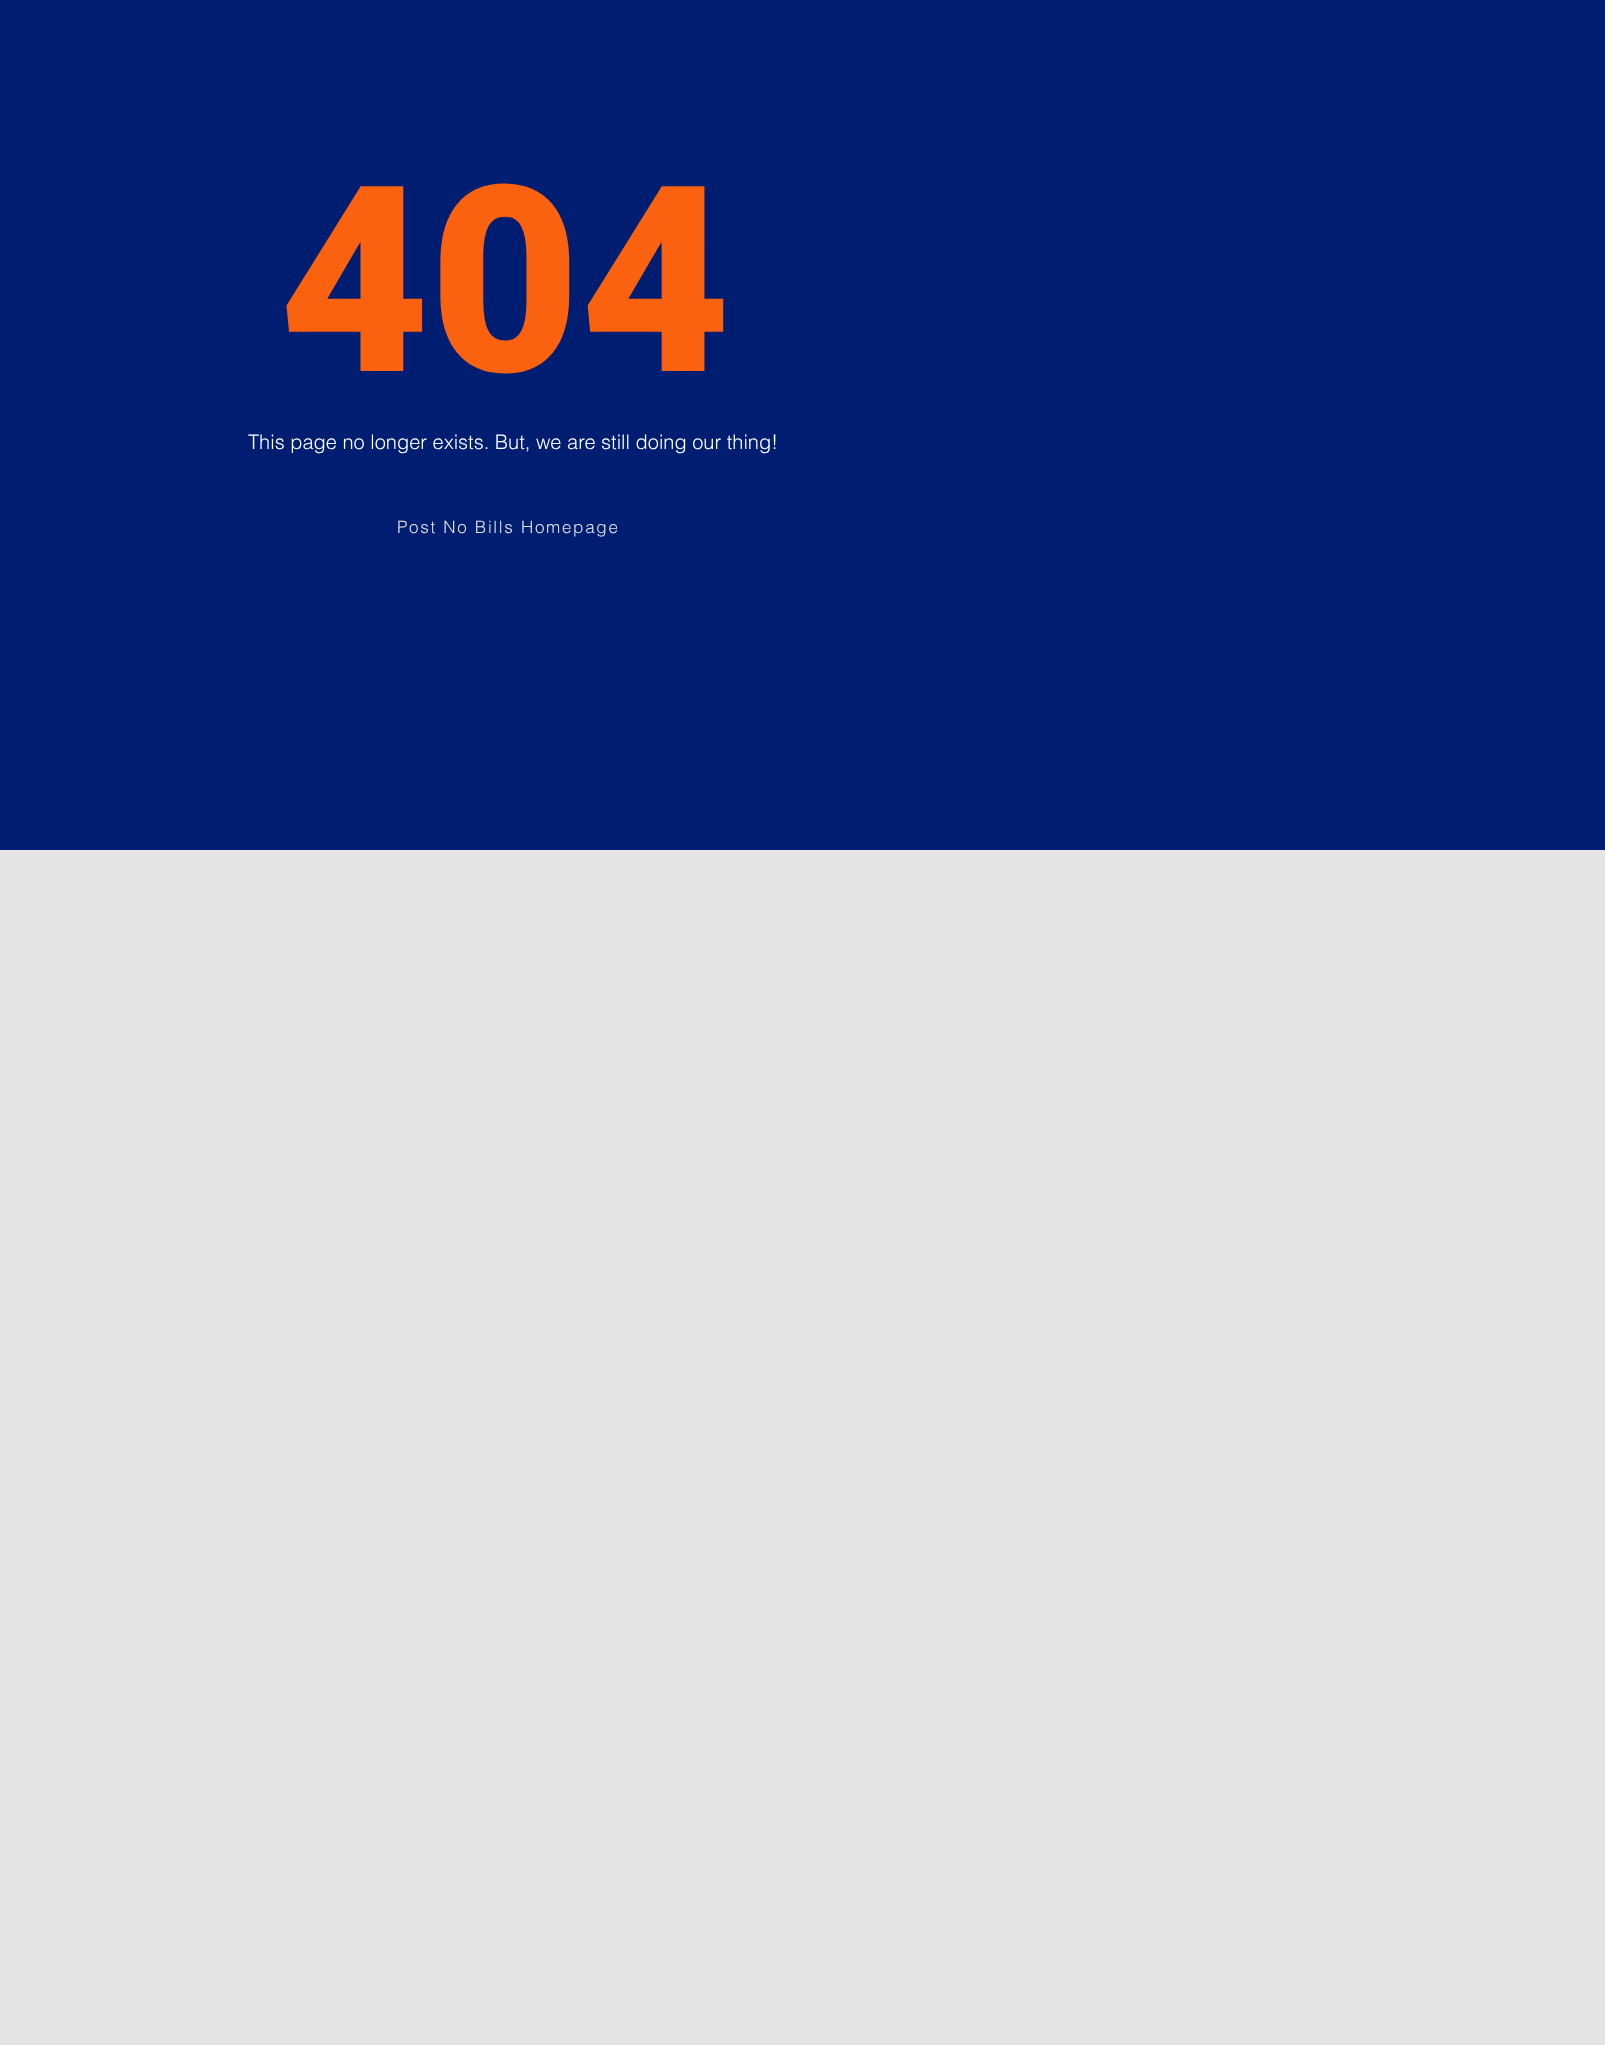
<svg xmlns="http://www.w3.org/2000/svg" width="1605" height="2045">
<rect width="100%" height="100%" fill="#e4e4e4"/>
<rect width="1605" height="850" fill="#001e71"/>
<text x="279" y="371" style="font-family:Roboto;font-size:260px;font-weight:900;fill:#fb6210">404</text>
<text x="248" y="449" style="font-family:helvetica;font-size:20px;font-weight:300;fill:#fff">This page no longer exists. But, we are still doing our thing!</text>
<text x="397" y="533" style="font-family:helvetica;font-size:17px;font-weight:300;letter-spacing:1.7px;fill:#e4e4e4">Post No Bills Homepage</text>
</svg>
